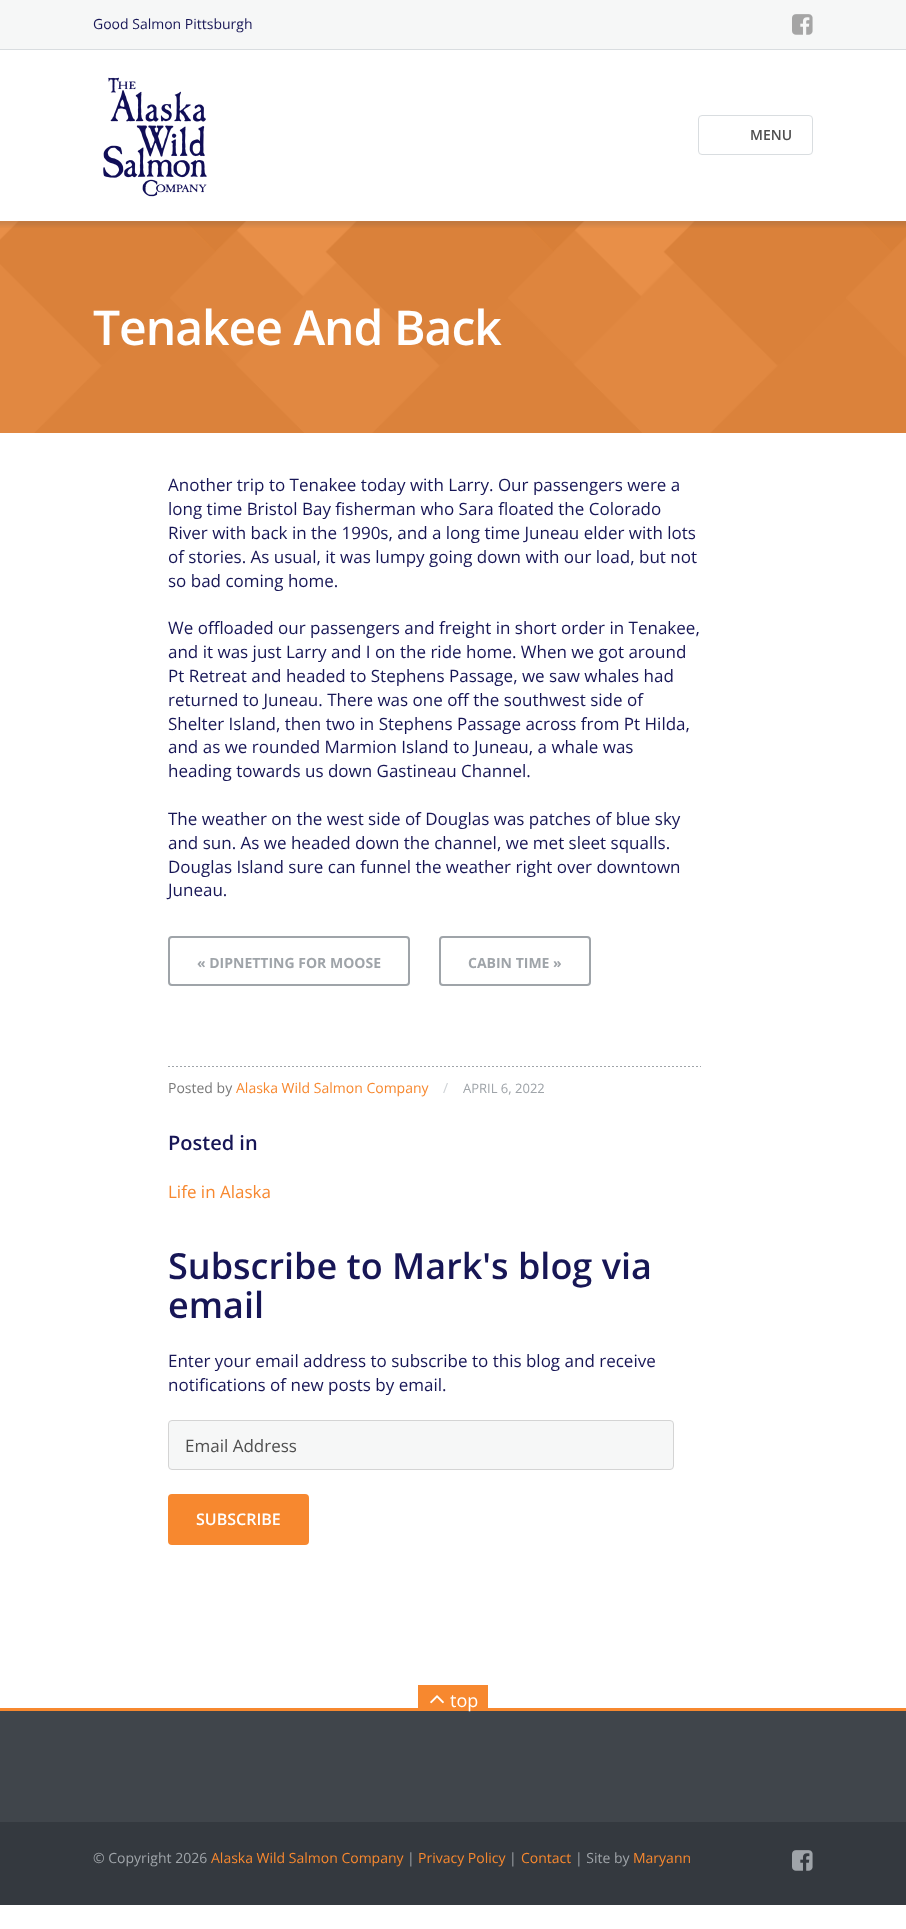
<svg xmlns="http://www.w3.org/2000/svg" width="906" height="1929">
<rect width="100%" height="100%" fill="#fff"/>
<rect width="906" height="49" fill="#f6f7f7"/>
<rect y="49" width="906" height="1" fill="#d9dde0"/>
<text x="93" y="29" style="font-family:Open Sans;font-size:14px;fill:#171656">Good Salmon Pittsburgh</text>
<image x="792" y="14" width="21" height="21" href="media/1.png"/>
<image x="103" y="77" width="104" height="120" href="media/2.png"/>
<rect x="698.5" y="115.5" width="114" height="39" rx="3.5" fill="none" stroke="#d9dde0"/>
<text x="750" y="140" style="font-family:Open Sans;font-size:14px;font-weight:600;fill:#4f4f4f">MENU</text>
<rect y="221" width="906" height="212" fill="#f7882f"/>
<image x="0" y="221" width="906" height="212" href="media/4.png"/>
<image x="0" y="221" width="906" height="7" href="media/3.png"/>
<text x="93" y="345" style="font-family:Open Sans;font-size:48px;font-weight:600;letter-spacing:-1px;fill:#fff">Tenakee And Back</text>
<text x="168" y="491" style="font-family:Open Sans;font-size:17px;fill:#171656">Another trip to Tenakee today with Larry. Our passengers were a</text>
<text x="168" y="515" style="font-family:Open Sans;font-size:17px;fill:#171656">long time Bristol Bay fisherman who Sara floated the Colorado</text>
<text x="168" y="539" style="font-family:Open Sans;font-size:17px;fill:#171656">River with back in the 1990s, and a long time Juneau elder with lots</text>
<text x="168" y="563" style="font-family:Open Sans;font-size:17px;fill:#171656">of stories. As usual, it was lumpy going down with our load, but not</text>
<text x="168" y="587" style="font-family:Open Sans;font-size:17px;fill:#171656">so bad coming home.</text>
<text x="168" y="634" style="font-family:Open Sans;font-size:17px;fill:#171656">We offloaded our passengers and freight in short order in Tenakee,</text>
<text x="168" y="658" style="font-family:Open Sans;font-size:17px;fill:#171656">and it was just Larry and I on the ride home. When we got around</text>
<text x="168" y="682" style="font-family:Open Sans;font-size:17px;fill:#171656">Pt Retreat and headed to Stephens Passage, we saw whales had</text>
<text x="168" y="706" style="font-family:Open Sans;font-size:17px;fill:#171656">returned to Juneau. There was one off the southwest side of</text>
<text x="168" y="730" style="font-family:Open Sans;font-size:17px;fill:#171656">Shelter Island, then two in Stephens Passage across from Pt Hilda,</text>
<text x="168" y="753" style="font-family:Open Sans;font-size:17px;fill:#171656">and as we rounded Marmion Island to Juneau, a whale was</text>
<text x="168" y="777" style="font-family:Open Sans;font-size:17px;fill:#171656">heading towards us down Gastineau Channel.</text>
<text x="168" y="825" style="font-family:Open Sans;font-size:17px;fill:#171656">The weather on the west side of Douglas was patches of blue sky</text>
<text x="168" y="849" style="font-family:Open Sans;font-size:17px;fill:#171656">and sun. As we headed down the channel, we met sleet squalls.</text>
<text x="168" y="873" style="font-family:Open Sans;font-size:17px;fill:#171656">Douglas Island sure can funnel the weather right over downtown</text>
<text x="168" y="896" style="font-family:Open Sans;font-size:17px;fill:#171656">Juneau.</text>
<rect x="169" y="937" width="240" height="48" rx="3" fill="none" stroke="#9fa4a9" stroke-width="2"/>
<text x="197" y="968" style="font-family:Open Sans;font-size:14px;font-weight:bold;fill:#9fa4a9">« DIPNETTING FOR MOOSE</text>
<rect x="440" y="937" width="150" height="48" rx="3" fill="none" stroke="#9fa4a9" stroke-width="2"/>
<text x="468" y="968" style="font-family:Open Sans;font-size:14px;font-weight:bold;fill:#9fa4a9">CABIN TIME »</text>
<image x="168" y="1066" width="533" height="1" href="media/5.png"/>
<text x="168" y="1093" style="font-family:Open Sans;font-size:14px;fill:#797979">Posted by</text>
<text x="236" y="1093" style="font-family:Open Sans;font-size:14px;fill:#f7882f">Alaska Wild Salmon Company</text>
<text x="443" y="1093" style="font-family:Open Sans;font-size:14px;fill:#cfd3d7">/</text>
<text x="463" y="1093" style="font-family:Open Sans;font-size:13px;fill:#9fa4a9">APRIL 6, 2022</text>
<text x="168" y="1150" style="font-family:Open Sans;font-size:20px;font-weight:600;fill:#171656">Posted in</text>
<text x="168" y="1198" style="font-family:Open Sans;font-size:17px;fill:#f7882f">Life in Alaska</text>
<text x="168" y="1279" style="font-family:Open Sans;font-size:36px;font-weight:600;fill:#171656">Subscribe to Mark's blog via</text>
<text x="168" y="1318" style="font-family:Open Sans;font-size:36px;font-weight:600;fill:#171656">email</text>
<text x="168" y="1367" style="font-family:Open Sans;font-size:17px;fill:#171656">Enter your email address to subscribe to this blog and receive</text>
<text x="168" y="1391" style="font-family:Open Sans;font-size:17px;fill:#171656">notifications of new posts by email.</text>
<rect x="168.5" y="1420.5" width="505" height="49" rx="3.5" fill="#f6f7f7" stroke="#d4d4d4"/>
<text x="185" y="1452" style="font-family:Open Sans;font-size:17px;fill:#4f4f4f">Email Address</text>
<rect x="168" y="1494" width="141" height="51" rx="4" fill="#f7882f"/>
<text x="196" y="1525" style="font-family:Open Sans;font-size:16px;font-weight:600;fill:#fff">SUBSCRIBE</text>
<rect y="1708" width="906" height="3" fill="#f7882f"/>
<rect x="418" y="1685" width="70" height="23" fill="#f7882f"/>
<image x="430" y="1695" width="14" height="9" href="media/6.png"/>
<rect y="1711" width="906" height="111" fill="#40454b"/>
<text x="450" y="1707" style="font-family:Open Sans;font-size:18px;fill:#fff">top</text>
<rect y="1822" width="906" height="83" fill="#34393f"/>
<text x="93" y="1863" style="font-family:Open Sans;font-size:14px;fill:#9fa4a9">© Copyright 2026</text>
<text x="211" y="1863" style="font-family:Open Sans;font-size:14px;fill:#f7882f">Alaska Wild Salmon Company</text>
<text x="407" y="1863" style="font-family:Open Sans;font-size:14px;fill:#9fa4a9">|</text>
<text x="418" y="1863" style="font-family:Open Sans;font-size:14px;fill:#f7882f">Privacy Policy</text>
<text x="509" y="1863" style="font-family:Open Sans;font-size:14px;fill:#9fa4a9">|</text>
<text x="521" y="1863" style="font-family:Open Sans;font-size:14px;fill:#f7882f">Contact</text>
<text x="575" y="1863" style="font-family:Open Sans;font-size:14px;fill:#9fa4a9">| Site by</text>
<text x="633" y="1863" style="font-family:Open Sans;font-size:14px;fill:#f7882f">Maryann</text>
<image x="792" y="1850" width="21" height="21" href="media/7.png"/>
</svg>
